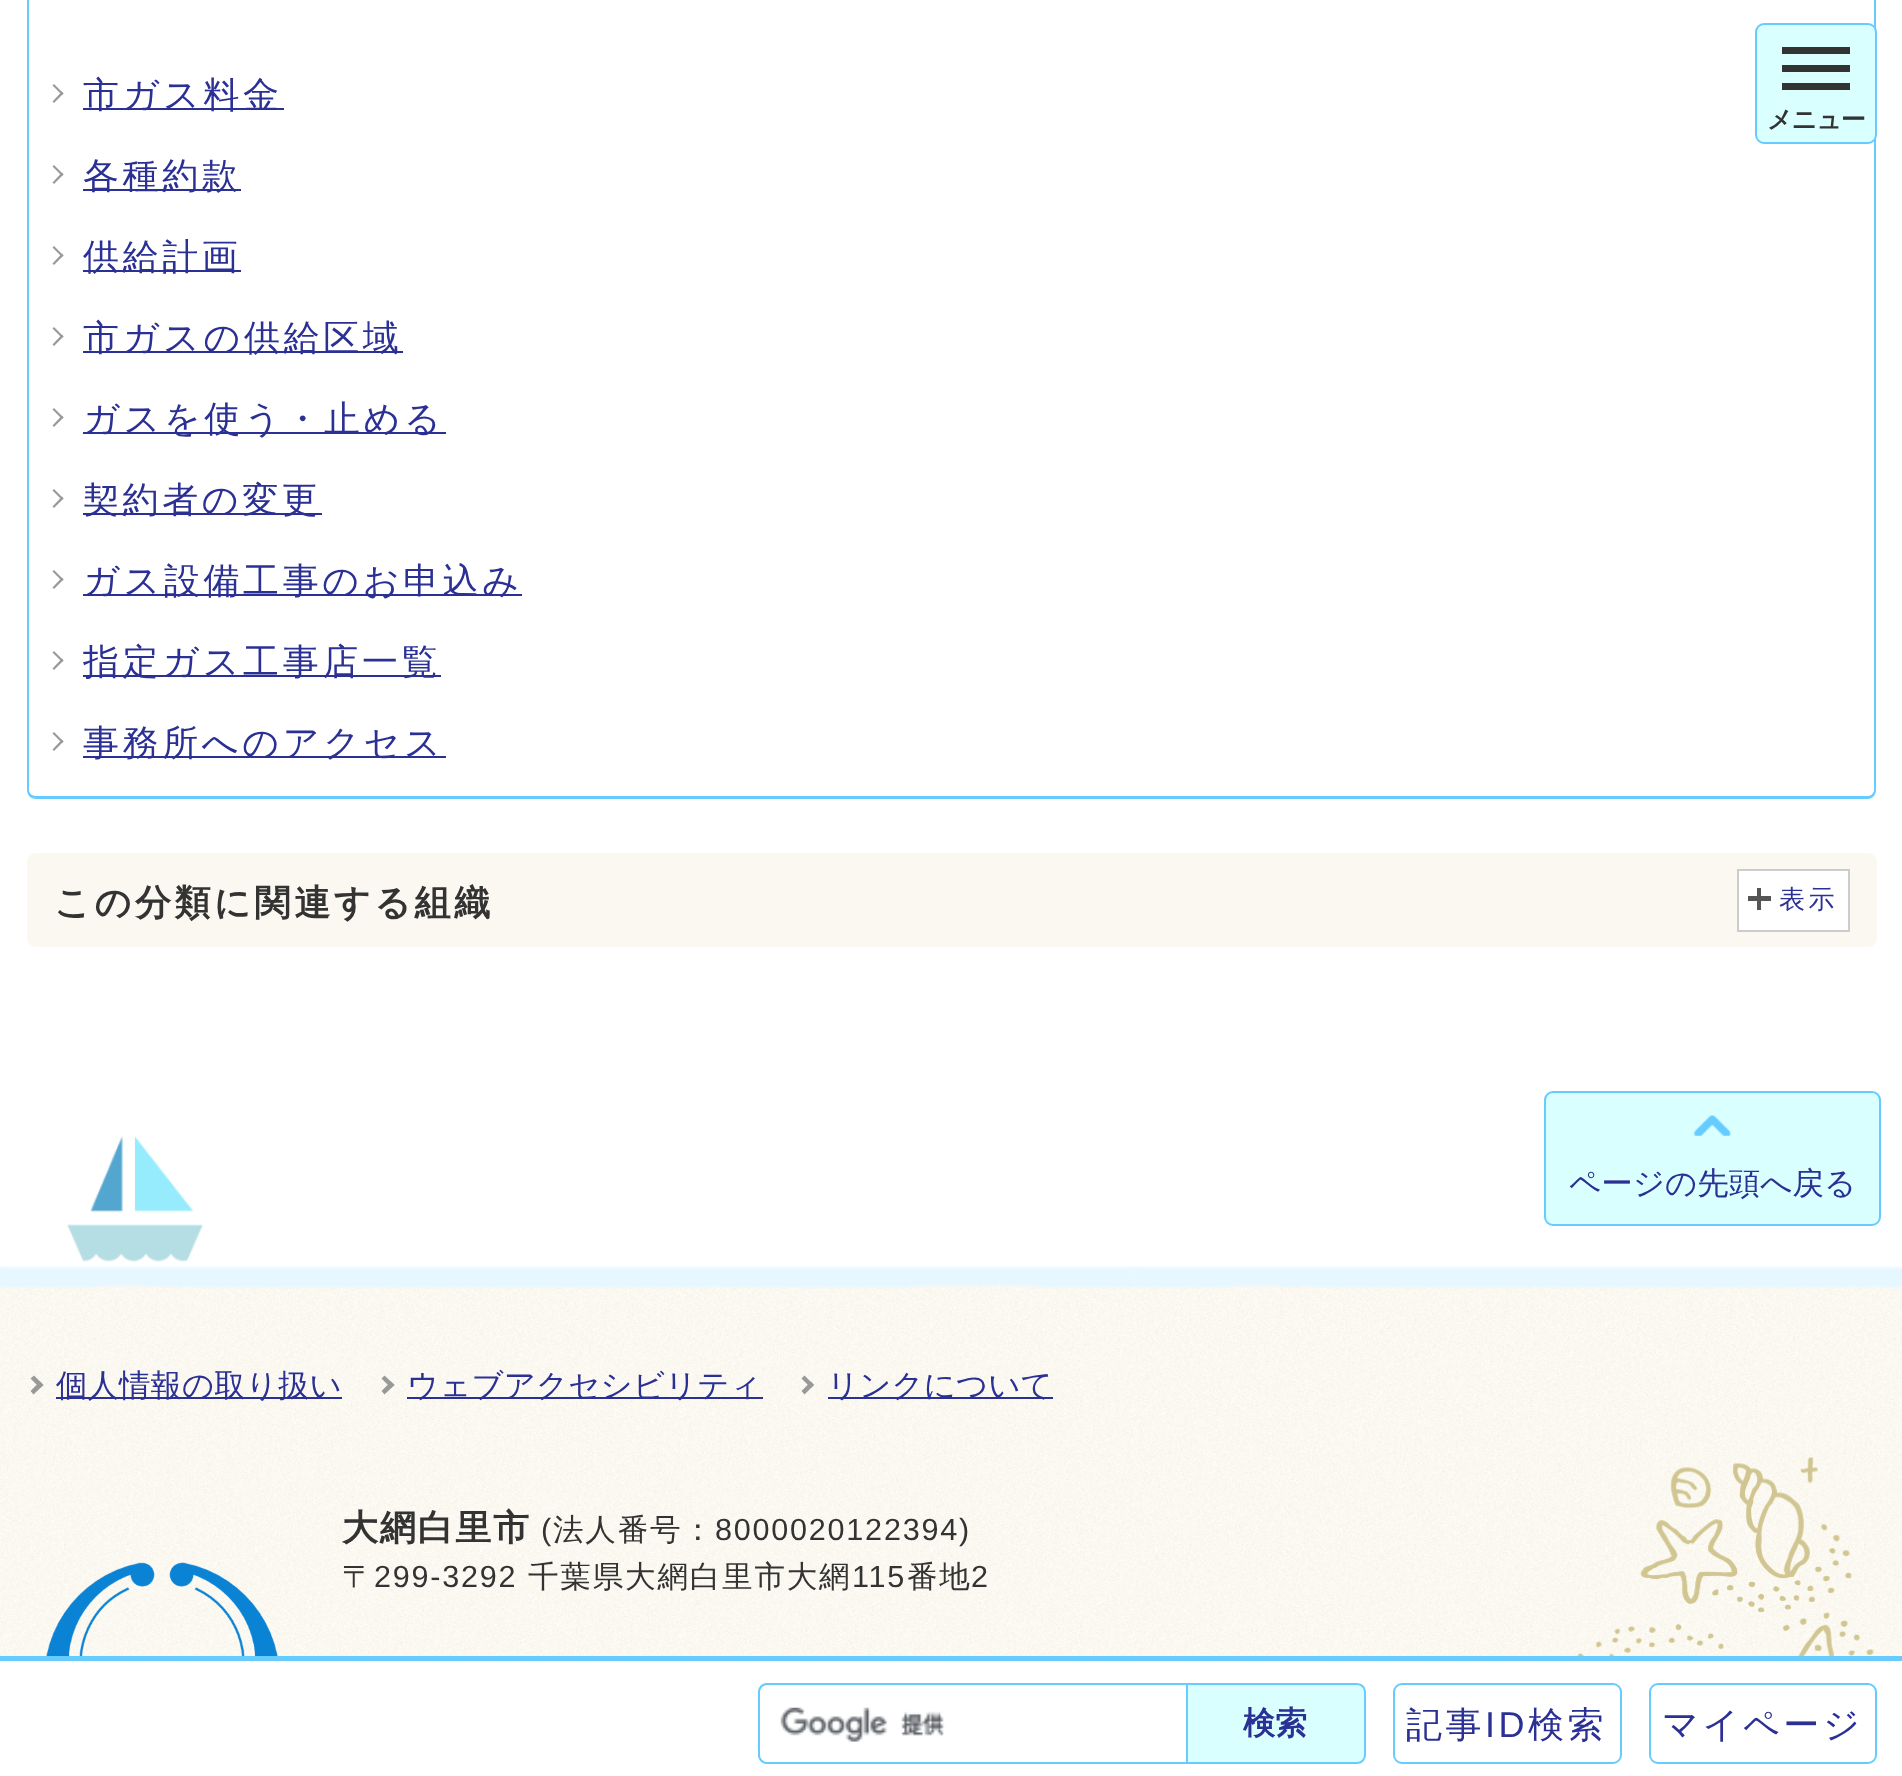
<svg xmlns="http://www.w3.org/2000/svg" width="1902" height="1776">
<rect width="100%" height="100%" fill="#fff"/>
<path d="M36-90h1832c4 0 8 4 8 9v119h-1849v-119c0-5 4-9 9-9zm0 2h1832c3 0 6 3 6 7v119h-1845v-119c0-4 3-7 7-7z" fill="#6cf" fill-rule="evenodd"/>
<path d="M27 38h1849v752c0 5-4 9-8 9h-1832c-5 0-9-4-9-9zm2 0h1845v752c0 3-3 6-6 6h-1832c-4 0-7-3-7-6z" fill="#6cf" fill-rule="evenodd"/>
<path d="M52.5 85.5l1.5-1.5l9.5 9.5l-1.5 1.5z" fill="#999"/>
<path d="M52.5 101.5l9.5-10l1.5 2l-9.5 9.5z" fill="#999"/>
<rect x="83" y="108" width="201" height="2" fill="#2b3095"/>
<text x="83" y="107" style="font-family:WenQuanYi Zen Hei;font-size:36px;font-weight:500;letter-spacing:3.6px;fill:#2b3095">市ガス料金</text>
<path d="M52.5 166.5l1.5-1.5l9.5 9.5l-1.5 1.5z" fill="#999"/>
<path d="M52.5 182.5l9.5-10l1.5 2l-9.5 9.5z" fill="#999"/>
<rect x="83" y="189" width="158" height="2" fill="#2b3095"/>
<text x="83" y="188" style="font-family:WenQuanYi Zen Hei;font-size:36px;font-weight:500;letter-spacing:3.6px;fill:#2b3095">各種約款</text>
<path d="M52.5 247.5l1.5-1.5l9.5 9.5l-1.5 1.5z" fill="#999"/>
<path d="M52.5 263.5l9.5-10l1.5 2l-9.5 9.5z" fill="#999"/>
<rect x="83" y="270" width="158" height="2" fill="#2b3095"/>
<text x="83" y="269" style="font-family:WenQuanYi Zen Hei;font-size:36px;font-weight:500;letter-spacing:3.6px;fill:#2b3095">供給計画</text>
<path d="M52.5 328.5l1.5-1.5l9.5 9.5l-1.5 1.5z" fill="#999"/>
<path d="M52.5 344.5l9.5-10l1.5 2l-9.5 9.5z" fill="#999"/>
<rect x="83" y="351" width="320" height="2" fill="#2b3095"/>
<text x="83" y="350" style="font-family:WenQuanYi Zen Hei;font-size:36px;font-weight:500;letter-spacing:3.6px;fill:#2b3095">市ガスの供給区域</text>
<path d="M52.5 409.5l1.5-1.5l9.5 9.5l-1.5 1.5z" fill="#999"/>
<path d="M52.5 425.5l9.5-10l1.5 2l-9.5 9.5z" fill="#999"/>
<rect x="83" y="432" width="363" height="2" fill="#2b3095"/>
<text x="83" y="431" style="font-family:WenQuanYi Zen Hei;font-size:36px;font-weight:500;letter-spacing:3.6px;fill:#2b3095">ガスを使う・止める</text>
<path d="M52.5 490.5l1.5-1.5l9.5 9.5l-1.5 1.5z" fill="#999"/>
<path d="M52.5 506.5l9.5-10l1.5 2l-9.5 9.5z" fill="#999"/>
<rect x="83" y="513" width="239" height="2" fill="#2b3095"/>
<text x="83" y="512" style="font-family:WenQuanYi Zen Hei;font-size:36px;font-weight:500;letter-spacing:3.6px;fill:#2b3095">契約者の変更</text>
<path d="M52.5 571.5l1.5-1.5l9.5 9.5l-1.5 1.5z" fill="#999"/>
<path d="M52.5 587.5l9.5-10l1.5 2l-9.5 9.5z" fill="#999"/>
<rect x="83" y="594" width="439" height="2" fill="#2b3095"/>
<text x="83" y="593" style="font-family:WenQuanYi Zen Hei;font-size:36px;font-weight:500;letter-spacing:3.6px;fill:#2b3095">ガス設備工事のお申込み</text>
<path d="M52.5 652.5l1.5-1.5l9.5 9.5l-1.5 1.5z" fill="#999"/>
<path d="M52.5 668.5l9.5-10l1.5 2l-9.5 9.5z" fill="#999"/>
<rect x="83" y="675" width="358" height="2" fill="#2b3095"/>
<text x="83" y="674" style="font-family:WenQuanYi Zen Hei;font-size:36px;font-weight:500;letter-spacing:3.6px;fill:#2b3095">指定ガス工事店一覧</text>
<path d="M52.5 733.5l1.5-1.5l9.5 9.5l-1.5 1.5z" fill="#999"/>
<path d="M52.5 749.5l9.5-10l1.5 2l-9.5 9.5z" fill="#999"/>
<rect x="83" y="756" width="363" height="2" fill="#2b3095"/>
<text x="83" y="755" style="font-family:WenQuanYi Zen Hei;font-size:36px;font-weight:500;letter-spacing:3.6px;fill:#2b3095">事務所へのアクセス</text>
<rect x="27" y="853" width="1850" height="94" rx="9" fill="#faf8f0"/>
<text x="54" y="915" style="font-family:WenQuanYi Zen Hei;font-size:36px;font-weight:bold;letter-spacing:3.6px;fill:#333">この分類に関連する組織</text>
<rect x="1738" y="870" width="111" height="61" fill="#fff" stroke="#ccc" stroke-width="2"/>
<rect x="1748" y="896" width="23" height="5" fill="#555"/>
<rect x="1757" y="888" width="4" height="22" fill="#555"/>
<text x="1779" y="908" style="font-family:WenQuanYi Zen Hei;font-size:26px;font-weight:500;letter-spacing:3.6px;fill:#2b3095">表示</text>
<rect x="1756" y="24" width="120" height="119" rx="8" fill="#d9ffff" stroke="#6cf" stroke-width="2"/>
<rect x="1782" y="47" width="68" height="7" fill="#333"/>
<rect x="1782" y="65" width="68" height="7" fill="#333"/>
<rect x="1782" y="83" width="68" height="7" fill="#333"/>
<text x="1767" y="128" style="font-family:WenQuanYi Zen Hei;font-size:25px;font-weight:bold;letter-spacing:-1px;fill:#333">メニュー</text>
<rect y="1656" width="1902" height="5" fill="#6cf"/>
<image x="780" y="1707" width="165" height="35" href="media/1.png"/>
<path d="M767 1683h419v81h-419c-5 0-9-4-9-9v-63c0-5 4-9 9-9zm0 2h419v77h-419c-3 0-7-3-7-7v-63c0-4 4-7 7-7z" fill="#6cf" fill-rule="evenodd"/>
<path d="M1187 1684h170c4.5 0 8 3.5 8 8v63c0 4.5-3.5 8-8 8h-170z" fill="#d9ffff" stroke="#6cf" stroke-width="2"/>
<text x="1243" y="1734" style="font-family:WenQuanYi Zen Hei;font-size:32px;font-weight:bold;fill:#2b3095">検索</text>
<rect x="1394" y="1684" width="227" height="79" rx="8" fill="none" stroke="#6cf" stroke-width="2"/>
<text x="1406" y="1737" style="font-family:WenQuanYi Zen Hei;font-size:36px;font-weight:500;letter-spacing:3.6px;fill:#2b3095">記事</text>
<text x="1485" y="1737" style="font-family:Liberation Sans;font-size:36px;letter-spacing:3.6px;fill:#2b3095">ID</text>
<text x="1528" y="1737" style="font-family:WenQuanYi Zen Hei;font-size:36px;font-weight:500;letter-spacing:3.6px;fill:#2b3095">検索</text>
<rect x="1650" y="1684" width="226" height="79" rx="8" fill="none" stroke="#6cf" stroke-width="2"/>
<text x="1662" y="1737" style="font-family:WenQuanYi Zen Hei;font-size:36px;font-weight:500;letter-spacing:3.6px;fill:#2b3095">マイページ</text>
<rect x="1545" y="1092" width="335" height="133" rx="8" fill="#d9ffff" stroke="#6cf" stroke-width="2"/>
<image x="1694" y="1115" width="37" height="21" href="media/2.png"/>
<text x="1569" y="1194" style="font-family:WenQuanYi Zen Hei;font-size:31.5px;font-weight:500;fill:#2b3095">ページの先頭へ戻る</text>
<image x="0" y="1277" width="1902" height="379" href="media/3.png"/>
<image x="0" y="1266" width="1902" height="23" href="media/4.png"/>
<image x="67" y="1136" width="136" height="126" href="media/5.png"/>
<path d="M30.5 1378.5l3.5-3l9.5 9.5l-3.5 3z" fill="#999"/>
<path d="M30.5 1391l9.5-9.5l3.5 3.5l-10 9.5z" fill="#999"/>
<rect x="56" y="1397" width="286" height="2" fill="#2b3095"/>
<text x="56" y="1396" style="font-family:WenQuanYi Zen Hei;font-size:31.5px;font-weight:500;fill:#2b3095">個人情報の取り扱い</text>
<path d="M381.5 1378.5l3-3l10 9.5l-3.5 3z" fill="#999"/>
<path d="M381.5 1391l9.5-9.5l3.5 3.5l-10 9.5z" fill="#999"/>
<rect x="407" y="1397" width="356" height="2" fill="#2b3095"/>
<text x="407" y="1396" style="font-family:WenQuanYi Zen Hei;font-size:31.5px;font-weight:500;fill:#2b3095">ウェブアクセシビリティ</text>
<path d="M801.5 1378.5l3-3l9.5 9.5l-3 3z" fill="#999"/>
<path d="M801.5 1391l9.5-9.5l3 3.5l-9.5 9.5z" fill="#999"/>
<rect x="828" y="1397" width="225" height="2" fill="#2b3095"/>
<text x="827" y="1396" style="font-family:WenQuanYi Zen Hei;font-size:31.5px;font-weight:500;fill:#2b3095">リンクについて</text>
<text x="342" y="1540" style="font-family:WenQuanYi Zen Hei;font-size:36px;font-weight:bold;letter-spacing:1.75px;fill:#333">大網白里市</text>
<text x="541" y="1540" style="font-family:Liberation Sans;font-size:30.6px;letter-spacing:1.75px;fill:#333">(</text>
<text x="553" y="1540" style="font-family:WenQuanYi Zen Hei;font-size:30.6px;font-weight:500;letter-spacing:1.75px;fill:#333">法人番号：</text>
<text x="715" y="1540" style="font-family:Liberation Sans;font-size:30.6px;letter-spacing:1.75px;fill:#333">8000020122394)</text>
<text x="342" y="1587" style="font-family:WenQuanYi Zen Hei;font-size:30.6px;font-weight:500;letter-spacing:1.75px;fill:#333">〒</text>
<text x="374" y="1587" style="font-family:Liberation Sans;font-size:30.6px;letter-spacing:1.75px;fill:#333">299-3292</text>
<text x="528" y="1587" style="font-family:WenQuanYi Zen Hei;font-size:30.6px;font-weight:500;letter-spacing:1.75px;fill:#333">千葉県大網白里市大網</text>
<text x="852" y="1587" style="font-family:Liberation Sans;font-size:30.6px;letter-spacing:1.75px;fill:#333">115</text>
<text x="907" y="1587" style="font-family:WenQuanYi Zen Hei;font-size:30.6px;font-weight:500;letter-spacing:1.75px;fill:#333">番地</text>
<text x="971" y="1587" style="font-family:Liberation Sans;font-size:30.6px;letter-spacing:1.75px;fill:#333">2</text>
<image x="46" y="1562" width="232" height="94" href="media/6.png"/>
<image x="1577" y="1457" width="297" height="199" href="media/7.png"/>
</svg>
